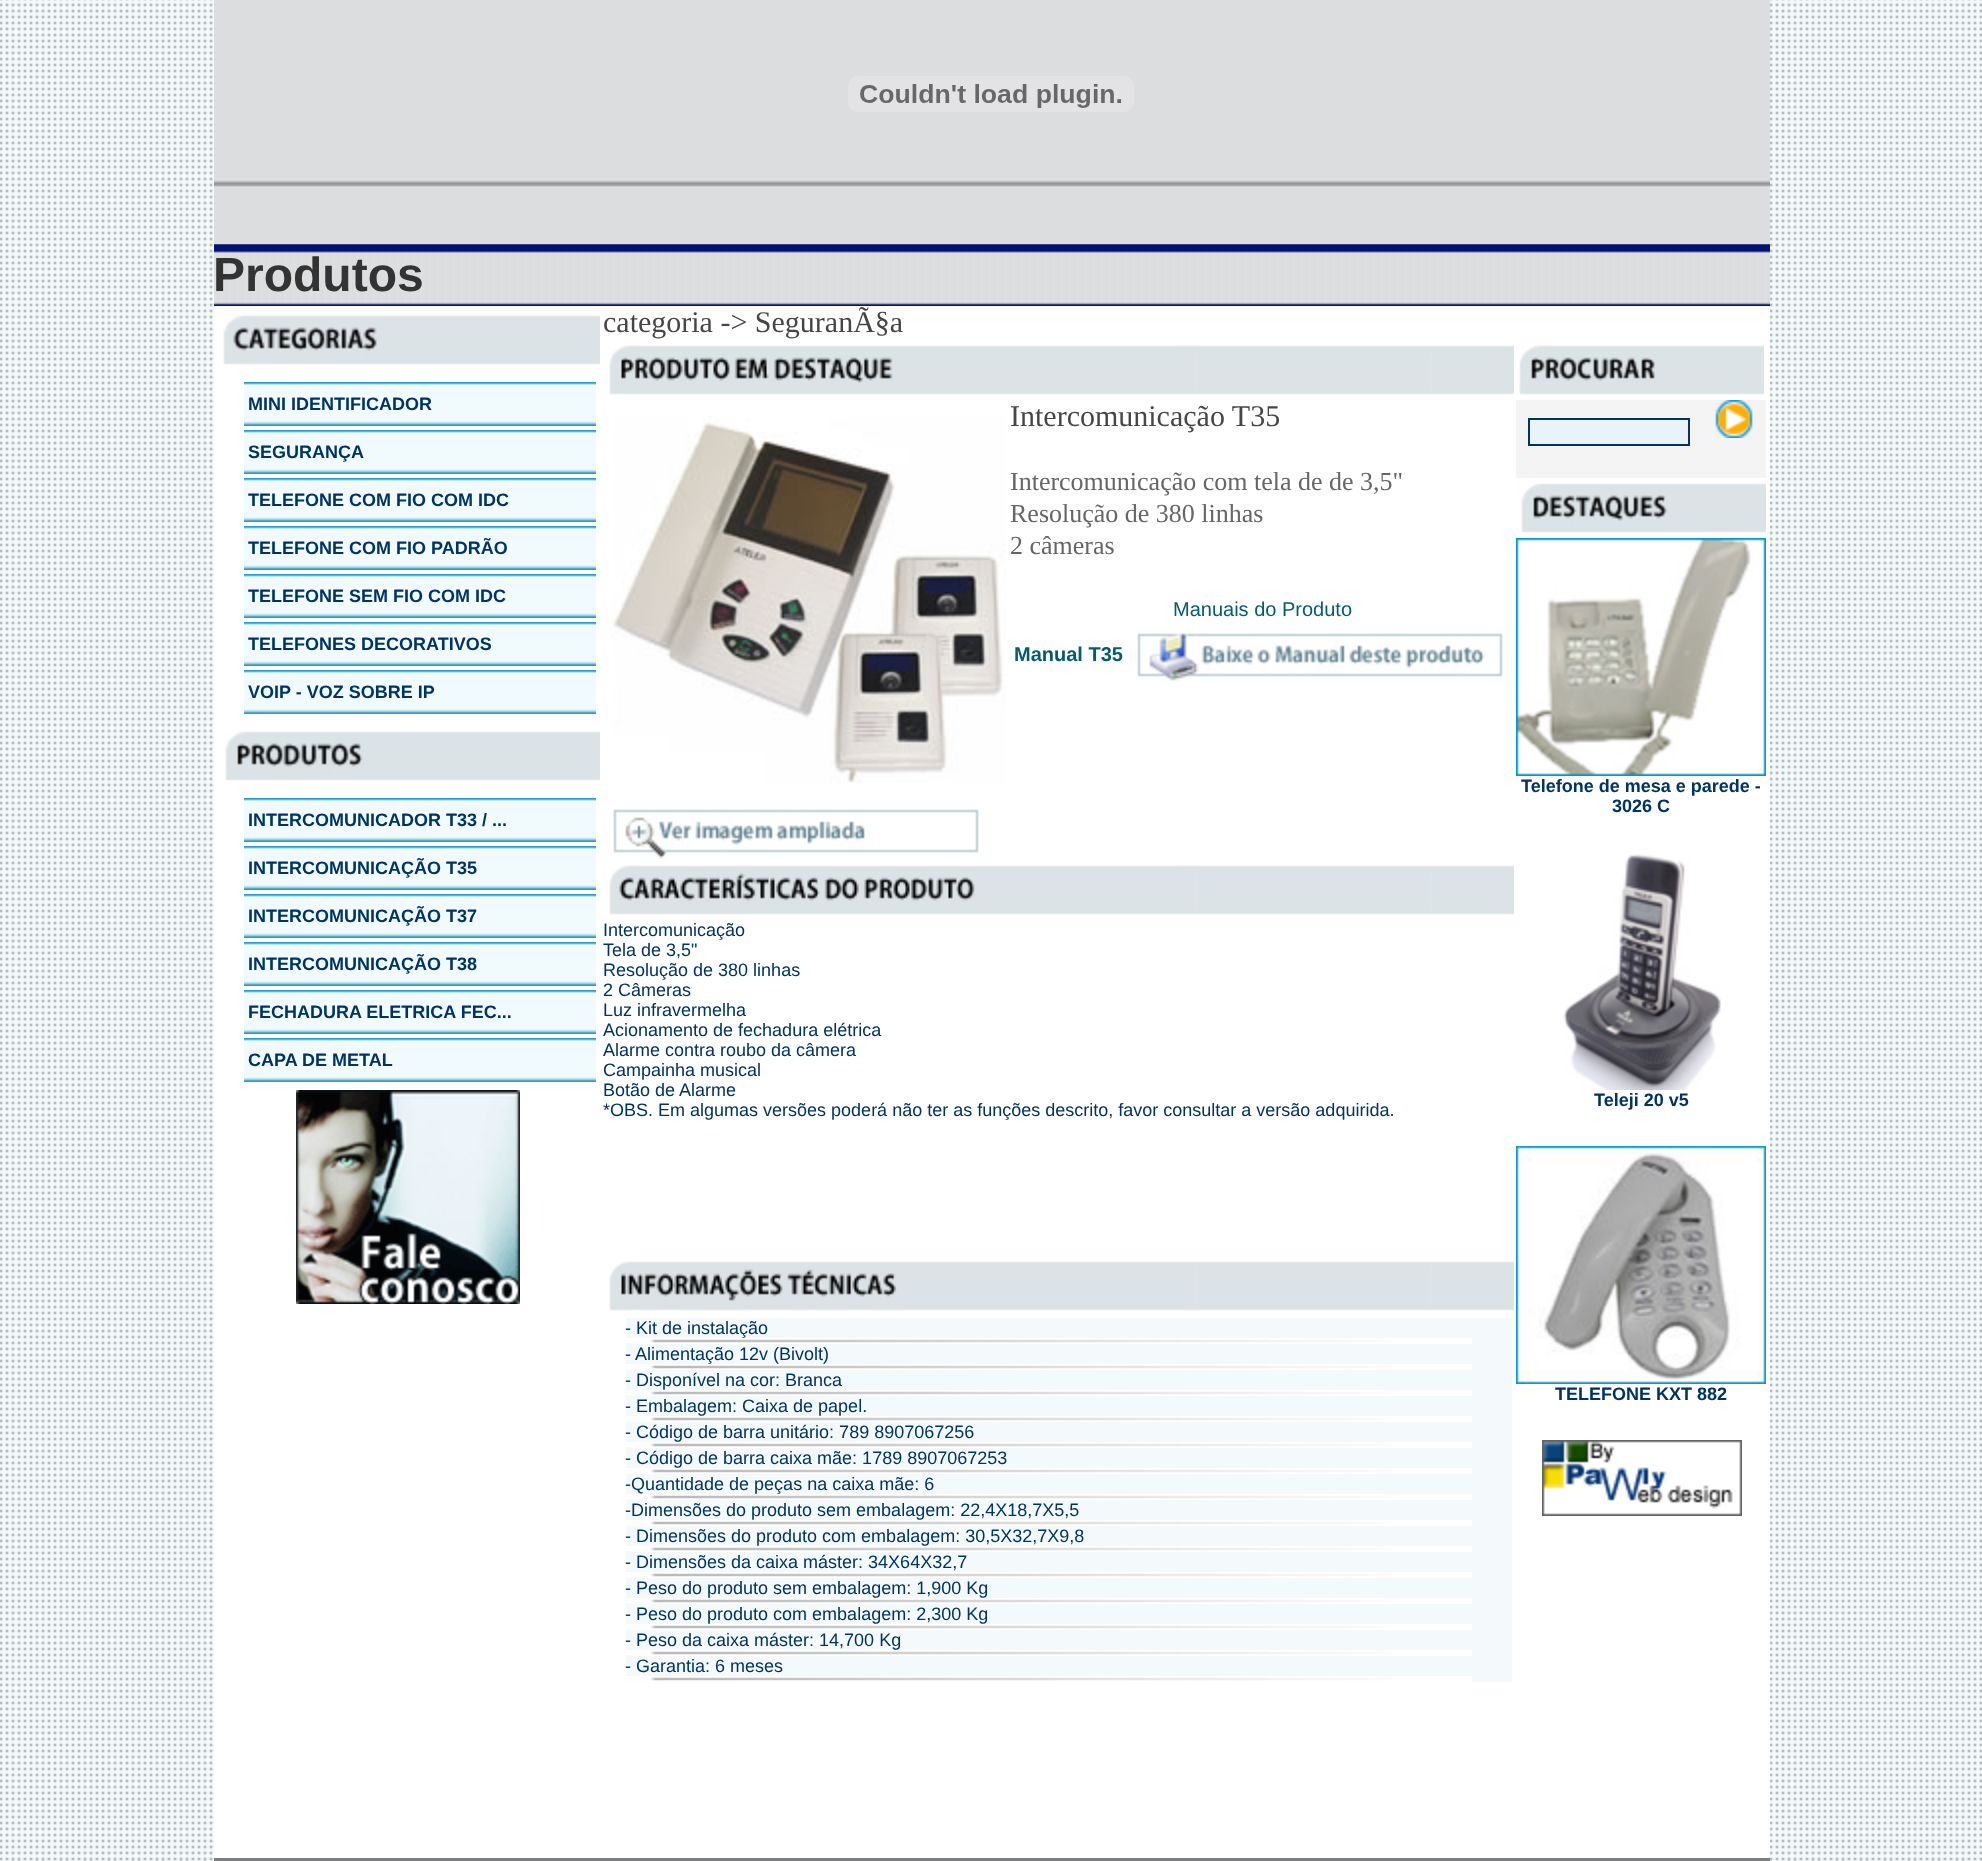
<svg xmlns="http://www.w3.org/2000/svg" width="1982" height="1861">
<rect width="100%" height="100%" fill="#fff"/>
<image x="0" y="0" width="1982" height="1861" href="media/1.png"/>
<image x="214" y="0" width="1556" height="244" href="media/2.png"/>
<image x="848" y="76" width="286" height="36" href="media/3.png"/>
<image x="214" y="244" width="1556" height="62" href="media/4.png"/>
<text x="213" y="291" style="font-family:Liberation Sans;font-size:48px;font-weight:bold;fill:#333">Produtos</text>
<rect x="214" y="306" width="1556" height="1552" fill="#fff"/>
<image x="223" y="315" width="377" height="50" href="media/5.png"/>
<image x="244" y="382" width="352" height="44" href="media/6.png"/>
<text x="248" y="410" style="font-family:Liberation Sans;font-size:18px;font-weight:bold;fill:#036">MINI IDENTIFICADOR</text>
<image x="244" y="430" width="352" height="44" href="media/6.png"/>
<text x="248" y="458" style="font-family:Liberation Sans;font-size:18px;font-weight:bold;fill:#036">SEGURANÇA</text>
<image x="244" y="478" width="352" height="44" href="media/6.png"/>
<text x="248" y="506" style="font-family:Liberation Sans;font-size:18px;font-weight:bold;fill:#036">TELEFONE COM FIO COM IDC</text>
<image x="244" y="526" width="352" height="44" href="media/6.png"/>
<text x="248" y="554" style="font-family:Liberation Sans;font-size:18px;font-weight:bold;fill:#036">TELEFONE COM FIO PADRÃO</text>
<image x="244" y="574" width="352" height="44" href="media/6.png"/>
<text x="248" y="602" style="font-family:Liberation Sans;font-size:18px;font-weight:bold;fill:#036">TELEFONE SEM FIO COM IDC</text>
<image x="244" y="622" width="352" height="44" href="media/6.png"/>
<text x="248" y="650" style="font-family:Liberation Sans;font-size:18px;font-weight:bold;fill:#036">TELEFONES DECORATIVOS</text>
<image x="244" y="670" width="352" height="44" href="media/6.png"/>
<text x="248" y="698" style="font-family:Liberation Sans;font-size:18px;font-weight:bold;fill:#036">VOIP - VOZ SOBRE IP</text>
<image x="225" y="731" width="375" height="50" href="media/7.png"/>
<image x="244" y="798" width="352" height="44" href="media/6.png"/>
<text x="248" y="826" style="font-family:Liberation Sans;font-size:18px;font-weight:bold;fill:#036">INTERCOMUNICADOR T33 / ...</text>
<image x="244" y="846" width="352" height="44" href="media/6.png"/>
<text x="248" y="874" style="font-family:Liberation Sans;font-size:18px;font-weight:bold;fill:#036">INTERCOMUNICAÇÃO T35</text>
<image x="244" y="894" width="352" height="44" href="media/6.png"/>
<text x="248" y="922" style="font-family:Liberation Sans;font-size:18px;font-weight:bold;fill:#036">INTERCOMUNICAÇÃO T37</text>
<image x="244" y="942" width="352" height="44" href="media/6.png"/>
<text x="248" y="970" style="font-family:Liberation Sans;font-size:18px;font-weight:bold;fill:#036">INTERCOMUNICAÇÃO T38</text>
<image x="244" y="990" width="352" height="44" href="media/6.png"/>
<text x="248" y="1018" style="font-family:Liberation Sans;font-size:18px;font-weight:bold;fill:#036">FECHADURA ELETRICA FEC...</text>
<image x="244" y="1038" width="352" height="44" href="media/6.png"/>
<text x="248" y="1066" style="font-family:Liberation Sans;font-size:18px;font-weight:bold;fill:#036">CAPA DE METAL</text>
<image x="296" y="1090" width="224" height="214" href="media/8.png"/>
<text x="603" y="332" style="font-family:Liberation Serif;font-size:30px;fill:#464646">categoria -&gt; SeguranÃ§a</text>
<image x="609" y="345" width="905" height="50" href="media/9.png"/>
<image x="1519" y="345" width="245" height="50" href="media/10.png"/>
<image x="613" y="809" width="366" height="50" href="media/11.png"/>
<image x="611" y="416" width="395" height="368" href="media/12.png"/>
<text x="1010" y="426" style="font-family:Liberation Serif;font-size:30px;fill:#464646">Intercomunicação T35</text>
<text x="1010" y="490" style="font-family:Liberation Serif;font-size:26px;fill:#666">Intercomunicação com tela de de 3,5"</text>
<text x="1010" y="522" style="font-family:Liberation Serif;font-size:26px;fill:#666">Resolução de 380 linhas</text>
<text x="1010" y="554" style="font-family:Liberation Serif;font-size:26px;fill:#666">2 câmeras</text>
<text x="1173" y="616" style="font-family:Liberation Sans;font-size:20px;fill:#035c6f">Manuais do Produto</text>
<text x="1014" y="661" style="font-family:Liberation Sans;font-size:20px;font-weight:bold;fill:#035c6f">Manual T35</text>
<image x="1137" y="633" width="366" height="48" href="media/13.png"/>
<rect x="1516" y="400" width="250" height="78" fill="#f4f4f4"/>
<rect x="1529" y="419" width="160" height="26" fill="#e8f4f9" stroke="#036" stroke-width="2"/>
<image x="1715" y="400" width="38" height="38" href="media/14.png"/>
<image x="1516" y="478" width="250" height="60" href="media/15.png"/>
<image x="1516" y="538" width="250" height="238" href="media/16.png"/>
<text x="1521" y="792" style="font-family:Liberation Sans;font-size:18px;font-weight:bold;fill:#036">Telefone de mesa e parede -</text>
<text x="1612" y="812" style="font-family:Liberation Sans;font-size:18px;font-weight:bold;fill:#036">3026 C</text>
<image x="1563" y="854" width="158" height="236" href="media/17.png"/>
<text x="1594" y="1106" style="font-family:Liberation Sans;font-size:18px;font-weight:bold;fill:#036">Teleji 20 v5</text>
<image x="1516" y="1146" width="250" height="238" href="media/18.png"/>
<text x="1555" y="1400" style="font-family:Liberation Sans;font-size:18px;font-weight:bold;fill:#036">TELEFONE KXT 882</text>
<image x="1542" y="1440" width="200" height="76" href="media/19.png"/>
<image x="609" y="865" width="905" height="50" href="media/20.png"/>
<text x="603" y="936" style="font-family:Liberation Sans;font-size:18px;fill:#036">Intercomunicação</text>
<text x="603" y="956" style="font-family:Liberation Sans;font-size:18px;fill:#036">Tela de 3,5"</text>
<text x="603" y="976" style="font-family:Liberation Sans;font-size:18px;fill:#036">Resolução de 380 linhas</text>
<text x="603" y="996" style="font-family:Liberation Sans;font-size:18px;fill:#036">2 Câmeras</text>
<text x="603" y="1016" style="font-family:Liberation Sans;font-size:18px;fill:#036">Luz infravermelha</text>
<text x="603" y="1036" style="font-family:Liberation Sans;font-size:18px;fill:#036">Acionamento de fechadura elétrica</text>
<text x="603" y="1056" style="font-family:Liberation Sans;font-size:18px;fill:#036">Alarme contra roubo da câmera</text>
<text x="603" y="1076" style="font-family:Liberation Sans;font-size:18px;fill:#036">Campainha musical</text>
<text x="603" y="1096" style="font-family:Liberation Sans;font-size:18px;fill:#036">Botão de Alarme</text>
<text x="603" y="1116" style="font-family:Liberation Sans;font-size:18px;fill:#036">*OBS. Em algumas versões poderá não ter as funções descrito, favor consultar a versão adquirida.</text>
<image x="609" y="1261" width="905" height="50" href="media/21.png"/>
<rect x="626" y="1318" width="886" height="364" fill="#f4fafb"/>
<text x="625" y="1334" style="font-family:Liberation Sans;font-size:18px;fill:#036">- Kit de instalação</text>
<image x="626" y="1338" width="846" height="6" href="media/22.png"/>
<text x="625" y="1360" style="font-family:Liberation Sans;font-size:18px;fill:#036">- Alimentação 12v (Bivolt)</text>
<image x="626" y="1364" width="846" height="6" href="media/22.png"/>
<text x="625" y="1386" style="font-family:Liberation Sans;font-size:18px;fill:#036">- Disponível na cor: Branca</text>
<image x="626" y="1390" width="846" height="6" href="media/22.png"/>
<text x="625" y="1412" style="font-family:Liberation Sans;font-size:18px;fill:#036">- Embalagem: Caixa de papel.</text>
<image x="626" y="1416" width="846" height="6" href="media/22.png"/>
<text x="625" y="1438" style="font-family:Liberation Sans;font-size:18px;fill:#036">- Código de barra unitário: 789 8907067256</text>
<image x="626" y="1442" width="846" height="6" href="media/22.png"/>
<text x="625" y="1464" style="font-family:Liberation Sans;font-size:18px;fill:#036">- Código de barra caixa mãe: 1789 8907067253</text>
<image x="626" y="1468" width="846" height="6" href="media/22.png"/>
<text x="625" y="1490" style="font-family:Liberation Sans;font-size:18px;fill:#036">-Quantidade de peças na caixa mãe: 6</text>
<image x="626" y="1494" width="846" height="6" href="media/22.png"/>
<text x="625" y="1516" style="font-family:Liberation Sans;font-size:18px;fill:#036">-Dimensões do produto sem embalagem: 22,4X18,7X5,5</text>
<image x="626" y="1520" width="846" height="6" href="media/22.png"/>
<text x="625" y="1542" style="font-family:Liberation Sans;font-size:18px;fill:#036">- Dimensões do produto com embalagem: 30,5X32,7X9,8</text>
<image x="626" y="1546" width="846" height="6" href="media/22.png"/>
<text x="625" y="1568" style="font-family:Liberation Sans;font-size:18px;fill:#036">- Dimensões da caixa máster: 34X64X32,7</text>
<image x="626" y="1572" width="846" height="6" href="media/22.png"/>
<text x="625" y="1594" style="font-family:Liberation Sans;font-size:18px;fill:#036">- Peso do produto sem embalagem: 1,900 Kg</text>
<image x="626" y="1598" width="846" height="6" href="media/22.png"/>
<text x="625" y="1620" style="font-family:Liberation Sans;font-size:18px;fill:#036">- Peso do produto com embalagem: 2,300 Kg</text>
<image x="626" y="1624" width="846" height="6" href="media/22.png"/>
<text x="625" y="1646" style="font-family:Liberation Sans;font-size:18px;fill:#036">- Peso da caixa máster: 14,700 Kg</text>
<image x="626" y="1650" width="846" height="6" href="media/22.png"/>
<text x="625" y="1672" style="font-family:Liberation Sans;font-size:18px;fill:#036">- Garantia: 6 meses</text>
<image x="626" y="1676" width="846" height="6" href="media/22.png"/>
<rect x="214" y="1858" width="1556" height="3" fill="#7d7e80"/>
</svg>
